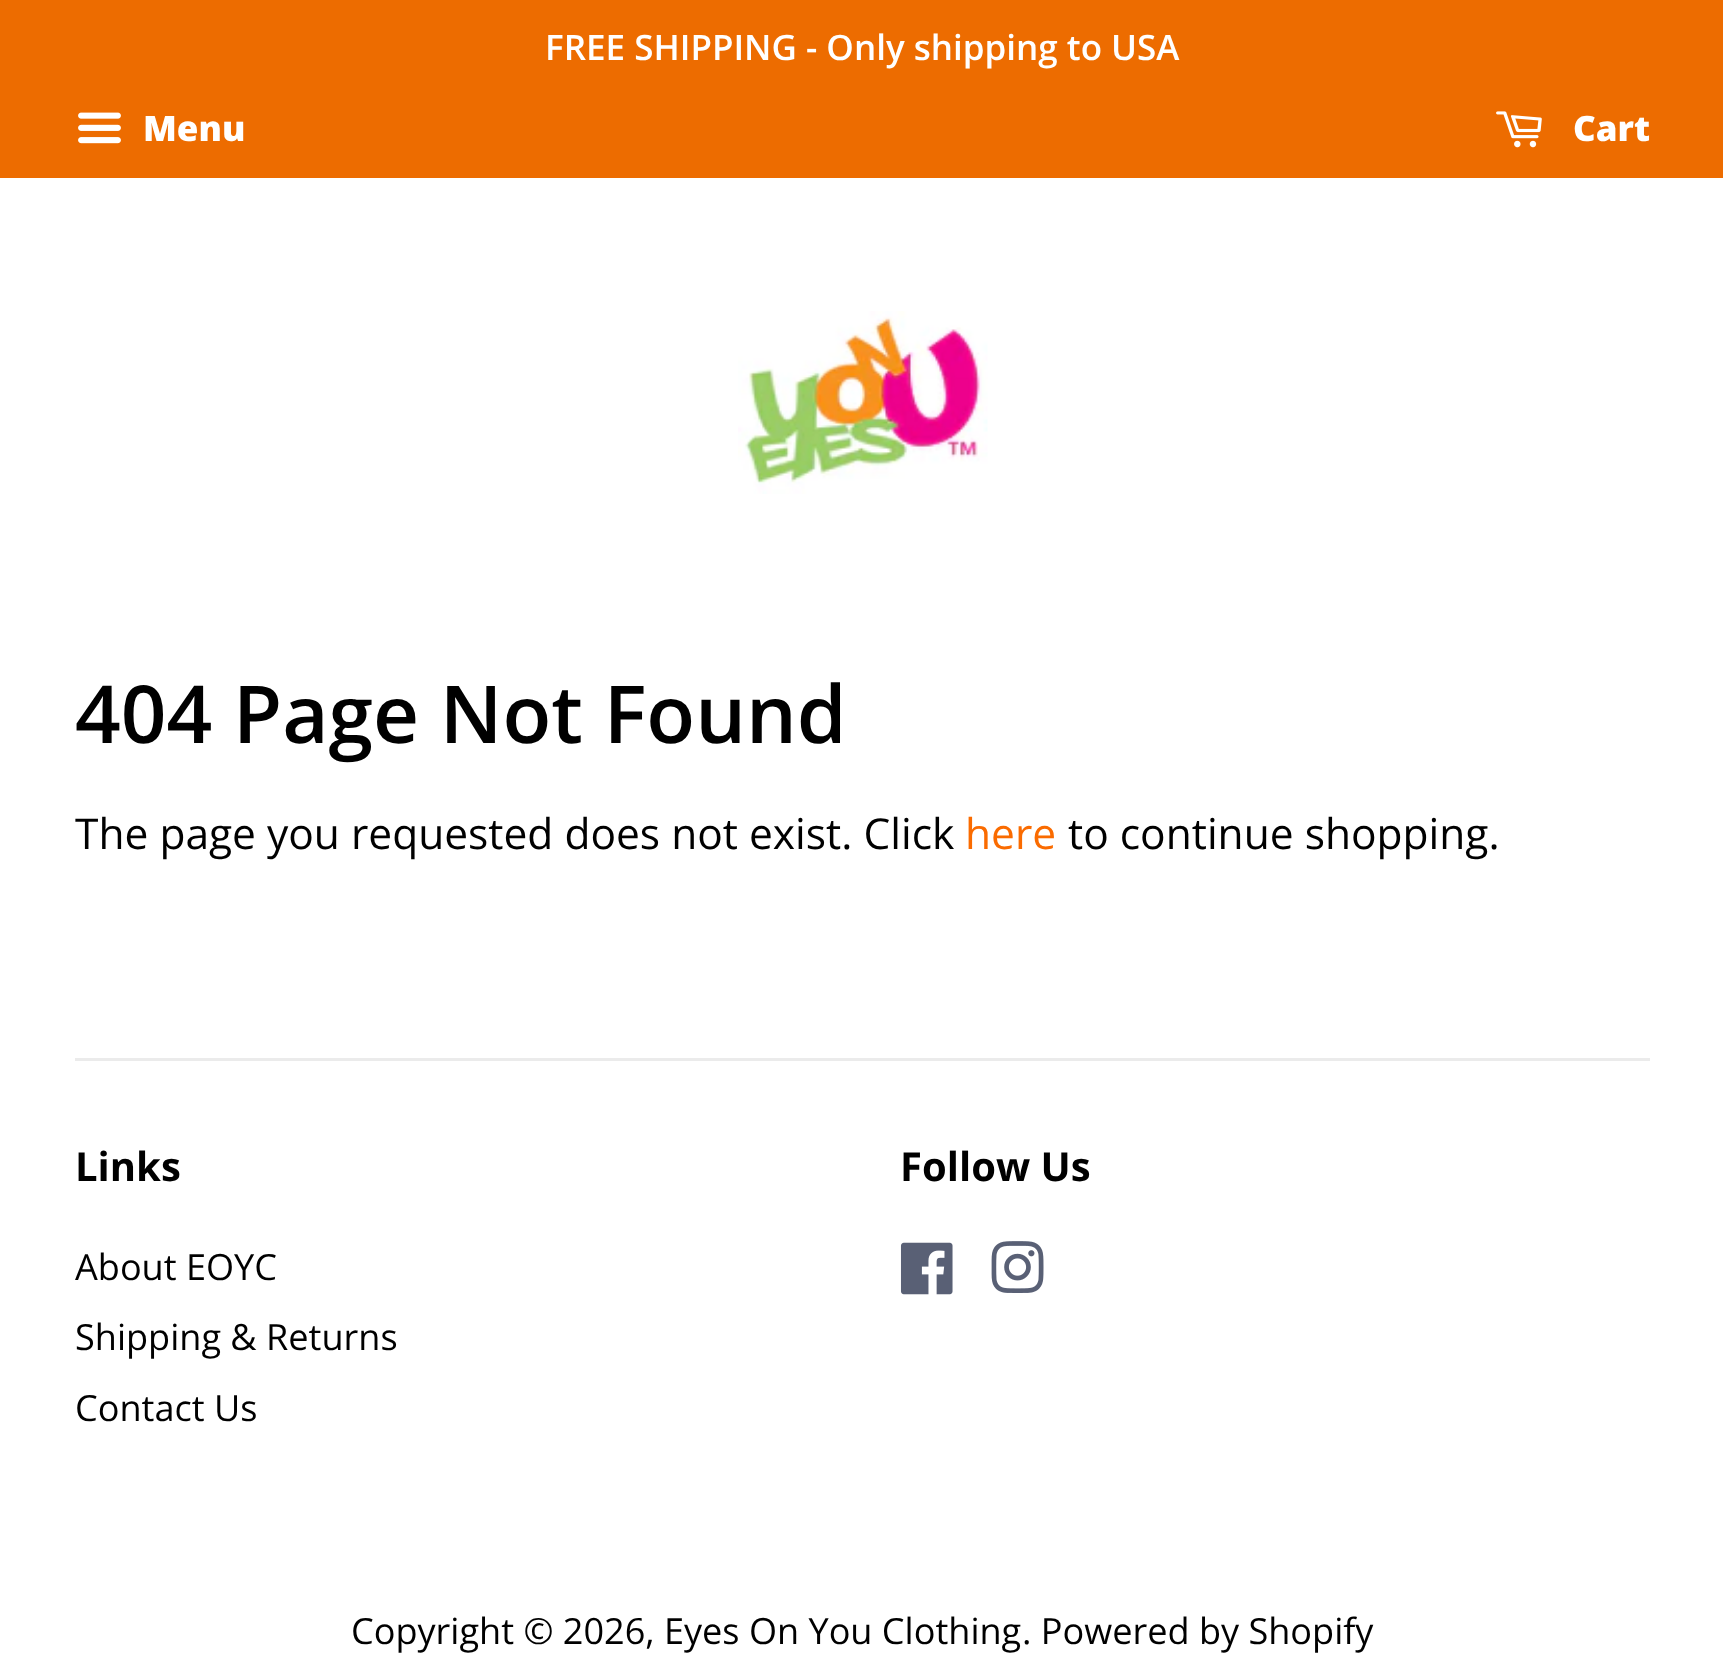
<svg xmlns="http://www.w3.org/2000/svg" width="1723" height="1673">
<rect width="100%" height="100%" fill="#fff"/>
<rect width="1723" height="178" fill="#ed6c00"/>
<text x="545" y="60" style="font-family:Open Sans;font-size:35px;font-weight:600;fill:#fff">FREE SHIPPING - Only shipping to USA</text>
<image x="78" y="112" width="43" height="32" href="media/1.png"/>
<text x="143" y="141" style="font-family:Open Sans;font-size:35px;font-weight:800;fill:#fff">Menu</text>
<image x="1496" y="111" width="46" height="37" href="media/2.png"/>
<text x="1573" y="141" style="font-family:Open Sans;font-size:35px;font-weight:800;fill:#fff">Cart</text>
<image x="738" y="311" width="250" height="183" href="media/3.png"/>
<text x="75" y="743" style="font-family:Open Sans;font-size:80px;font-weight:600;fill:#000">404 Page Not Found</text>
<text x="75" y="849" style="font-family:Open Sans;font-size:42.5px;fill:#000">The page you requested does not exist. Click</text>
<text x="965" y="849" style="font-family:Open Sans;font-size:42.5px;fill:#fa6b00">here</text>
<text x="1068" y="849" style="font-family:Open Sans;font-size:42.5px;fill:#000">to continue shopping.</text>
<rect x="75" y="1058" width="1575" height="3" fill="#ebebeb"/>
<text x="75" y="1181" style="font-family:Open Sans;font-size:40px;font-weight:bold;fill:#000">Links</text>
<text x="75" y="1280" style="font-family:Open Sans;font-size:36.1px;fill:#000">About EOYC</text>
<text x="75" y="1350" style="font-family:Open Sans;font-size:36.1px;fill:#000">Shipping &amp; Returns</text>
<text x="75" y="1421" style="font-family:Open Sans;font-size:36.1px;fill:#000">Contact Us</text>
<text x="900" y="1181" style="font-family:Open Sans;font-size:40px;font-weight:bold;fill:#000">Follow Us</text>
<image x="900" y="1242" width="53" height="53" href="media/4.png"/>
<image x="991" y="1241" width="53" height="52" href="media/5.png"/>
<text x="351" y="1644" style="font-family:Open Sans;font-size:36.1px;fill:#000">Copyright © 2026, Eyes On You Clothing</text>
<text x="1022" y="1644" style="font-family:Open Sans;font-size:36.1px;fill:#000">. Powered by Shopify</text>
</svg>
